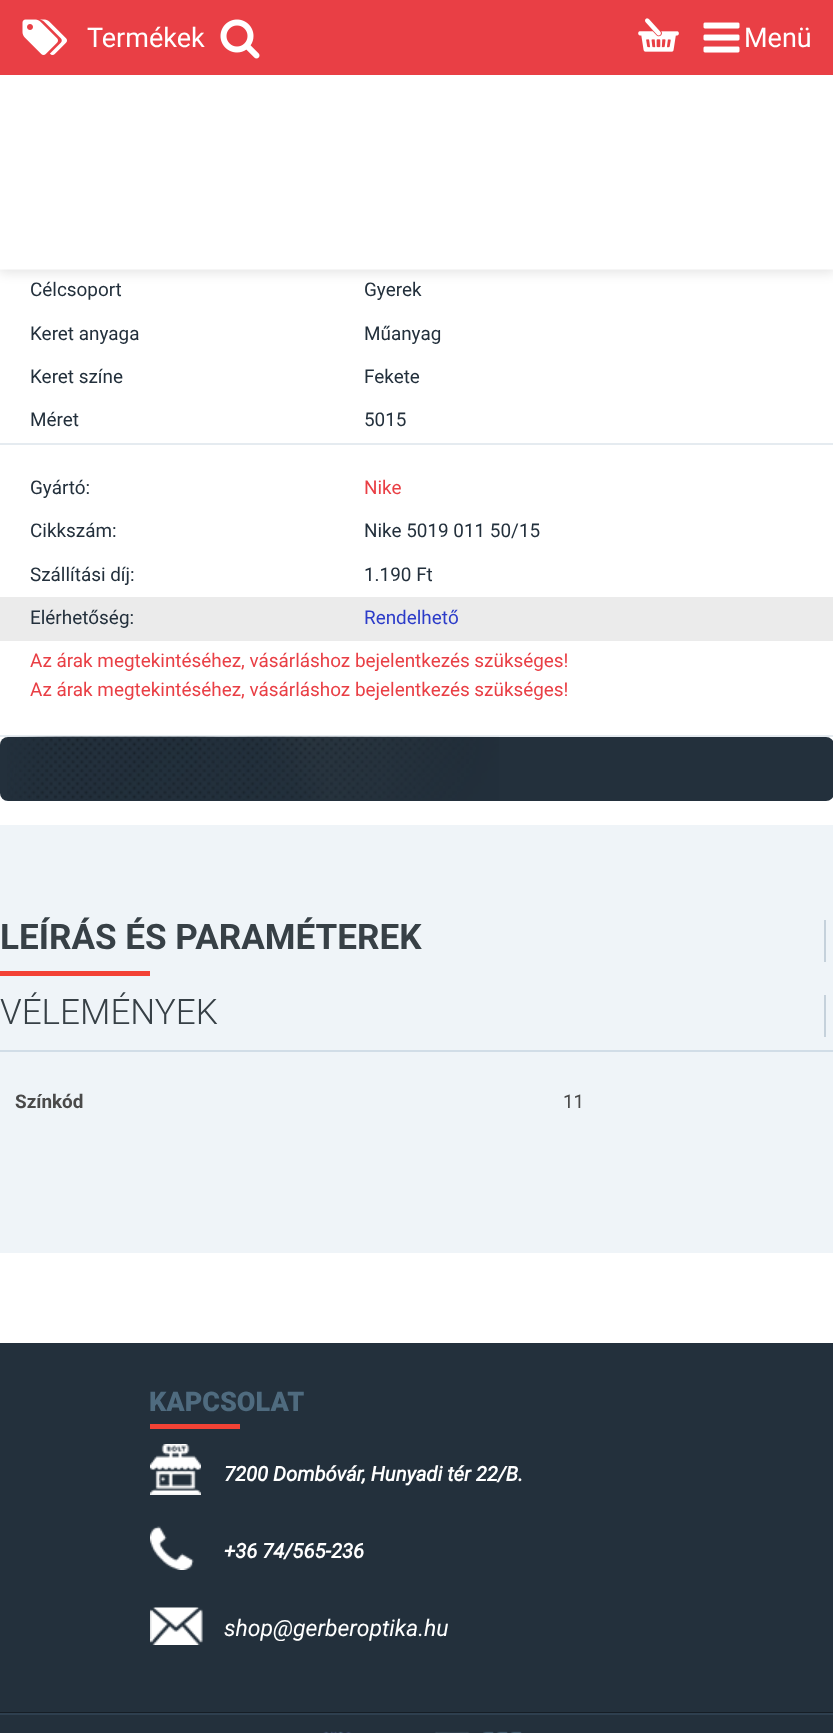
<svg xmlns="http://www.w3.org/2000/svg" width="833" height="1733">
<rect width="100%" height="100%" fill="#fff"/>
<rect x="-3" y="-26" width="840" height="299" rx="8" fill="#0000001a" filter="blur(6px)"/>
<rect width="833" height="75" fill="#e93f45"/>
<image x="22" y="19" width="45" height="36" href="media/1.png"/>
<text x="87" y="47" style="font-family:Roboto;font-size:27px;fill:#fff">Termékek</text>
<image x="220" y="19" width="40" height="40" href="media/2.png"/>
<image x="638" y="18" width="41" height="34" href="media/3.png"/>
<image x="703" y="22" width="37" height="31" href="media/4.png"/>
<text x="744" y="47" style="font-family:Roboto;font-size:27px;fill:#fff">Menü</text>
<image x="0" y="75" width="833" height="195" href="media/5.png"/>
<text x="30" y="296" style="font-family:Roboto;font-size:18.9px;fill:#23303c">Célcsoport</text>
<text x="364" y="296" style="font-family:Roboto;font-size:18.9px;fill:#23303c">Gyerek</text>
<text x="30" y="340" style="font-family:Roboto;font-size:18.9px;fill:#23303c">Keret anyaga</text>
<text x="364" y="340" style="font-family:Roboto;font-size:18.9px;fill:#23303c">Műanyag</text>
<text x="30" y="383" style="font-family:Roboto;font-size:18.9px;fill:#23303c">Keret színe</text>
<text x="364" y="383" style="font-family:Roboto;font-size:18.9px;fill:#23303c">Fekete</text>
<text x="30" y="426" style="font-family:Roboto;font-size:18.9px;fill:#23303c">Méret</text>
<text x="364" y="426" style="font-family:Roboto;font-size:18.9px;fill:#23303c">5015</text>
<text x="30" y="494" style="font-family:Roboto;font-size:18.9px;fill:#23303c">Gyártó:</text>
<rect y="443" width="833" height="2" fill="#e5ebf0"/>
<text x="364" y="494" style="font-family:Roboto;font-size:18.9px;fill:#e93f45">Nike</text>
<text x="30" y="537" style="font-family:Roboto;font-size:18.9px;fill:#23303c">Cikkszám:</text>
<text x="364" y="537" style="font-family:Roboto;font-size:18.9px;fill:#23303c">Nike 5019 011 50/15</text>
<text x="30" y="581" style="font-family:Roboto;font-size:18.9px;fill:#23303c">Szállítási díj:</text>
<text x="364" y="581" style="font-family:Roboto;font-size:18.9px;fill:#23303c">1.190 Ft</text>
<rect y="597" width="833" height="44" fill="#ebebeb"/>
<text x="30" y="624" style="font-family:Roboto;font-size:18.9px;fill:#23303c">Elérhetőség:</text>
<text x="364" y="624" style="font-family:Roboto;font-size:18.9px;fill:#2c3cc9">Rendelhető</text>
<rect y="735" width="833" height="2" fill="#e5ebf0"/>
<text x="30" y="667" style="font-family:Roboto;font-size:18.9px;fill:#e93f45">Az árak megtekintéséhez, vásárláshoz bejelentkezés szükséges!</text>
<text x="30" y="696" style="font-family:Roboto;font-size:18.9px;fill:#e93f45">Az árak megtekintéséhez, vásárláshoz bejelentkezés szükséges!</text>
<rect y="737" width="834" height="64" rx="8" fill="#23303c"/>
<image x="7" y="736" width="492" height="64" href="media/6.png"/>
<rect y="825" width="833" height="428" fill="#eff4f8"/>
<rect y="1050" width="833" height="2" fill="#d1dde7"/>
<text x="0" y="949" style="font-family:Roboto;font-size:35.1px;font-weight:bold;fill:#374046">LEÍRÁS ÉS PARAMÉTEREK</text>
<rect x="824" y="920" width="2" height="42" fill="#c5d1db"/>
<rect y="971" width="150" height="5" fill="#f34235"/>
<text x="0" y="1024" style="font-family:Roboto;font-size:35.1px;font-weight:300;fill:#374046">VÉLEMÉNYEK</text>
<rect x="824" y="995" width="2" height="42" fill="#c5d1db"/>
<text x="15" y="1108" style="font-family:Roboto;font-size:18.9px;font-weight:bold;fill:#4a4a4a">Színkód</text>
<text x="563" y="1108" style="font-family:Roboto;font-size:18.9px;fill:#4a4a4a">11</text>
<rect y="1343" width="833" height="369" fill="#23303c"/>
<rect y="1712" width="833" height="1" fill="#161e26"/>
<text x="149" y="1411" style="font-family:Roboto;font-size:27px;font-weight:900;fill:#4f6b7f">KAPCSOLAT</text>
<rect x="150" y="1424" width="90" height="5" fill="#f34235"/>
<image x="150" y="1444" width="51" height="51" href="media/7.png"/>
<text x="224" y="1481" style="font-family:Roboto;font-size:20.25px;font-weight:bold;font-style:italic;fill:#fff">7200 Dombóvár, Hunyadi tér 22/B.</text>
<image x="150" y="1526" width="44" height="44" href="media/8.png"/>
<text x="224" y="1558" style="font-family:Roboto;font-size:20.25px;font-weight:bold;font-style:italic;fill:#fff">+36 74/565-236</text>
<image x="150" y="1607" width="53" height="38" href="media/9.png"/>
<text x="224" y="1636" style="font-family:Roboto;font-size:23px;font-style:italic;fill:#fff">shop@gerberoptika.hu</text>
<rect y="1715" width="833" height="18" fill="#23303c"/>
<rect y="1713" width="833" height="2" fill="#2e3f4f"/>
<image x="323" y="1731" width="199" height="2" href="media/10.png"/>
</svg>
